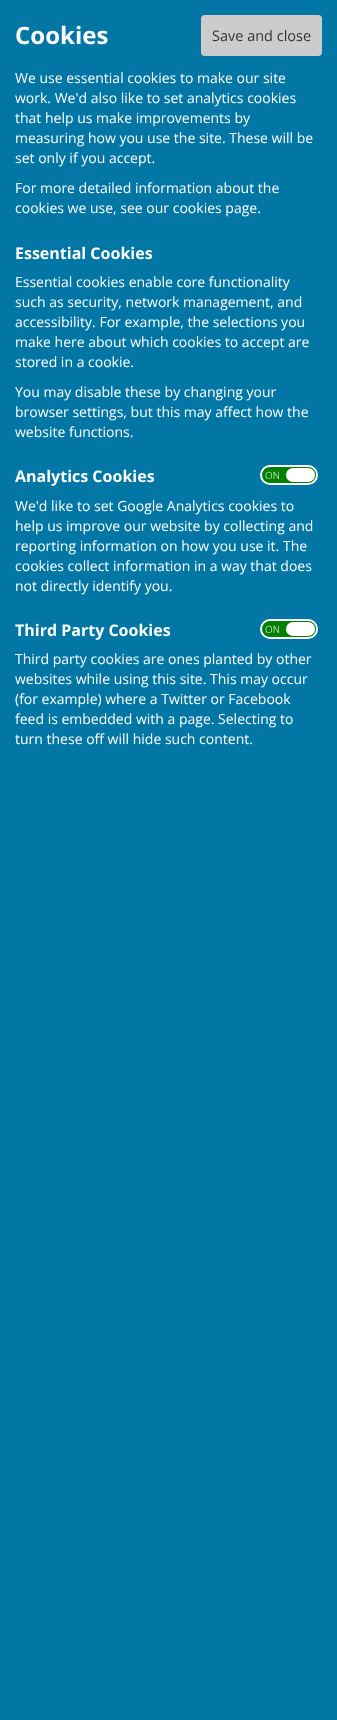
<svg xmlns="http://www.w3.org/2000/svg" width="337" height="1720">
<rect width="100%" height="100%" fill="#0276a5"/>
<text x="15" y="44" style="font-family:Open Sans;font-size:24px;font-weight:bold;fill:#fff">Cookies</text>
<rect x="201" y="15" width="121" height="41" rx="4" fill="#ccc"/>
<text x="212" y="41" style="font-family:Open Sans;font-size:14.5px;fill:#333">Save and close</text>
<text x="15" y="83" style="font-family:Open Sans;font-size:14px;fill:#fff">We use essential cookies to make our site</text>
<text x="15" y="103" style="font-family:Open Sans;font-size:14px;fill:#fff">work. We'd also like to set analytics cookies</text>
<text x="15" y="123" style="font-family:Open Sans;font-size:14px;fill:#fff">that help us make improvements by</text>
<text x="15" y="143" style="font-family:Open Sans;font-size:14px;fill:#fff">measuring how you use the site. These will be</text>
<text x="15" y="163" style="font-family:Open Sans;font-size:14px;fill:#fff">set only if you accept.</text>
<text x="15" y="193" style="font-family:Open Sans;font-size:14px;fill:#fff">For more detailed information about the</text>
<text x="15" y="213" style="font-family:Open Sans;font-size:14px;fill:#fff">cookies we use, see our cookies page.</text>
<text x="15" y="259" style="font-family:Open Sans;font-size:16px;font-weight:bold;fill:#fff">Essential Cookies</text>
<text x="15" y="287" style="font-family:Open Sans;font-size:14px;fill:#fff">Essential cookies enable core functionality</text>
<text x="15" y="307" style="font-family:Open Sans;font-size:14px;fill:#fff">such as security, network management, and</text>
<text x="15" y="327" style="font-family:Open Sans;font-size:14px;fill:#fff">accessibility. For example, the selections you</text>
<text x="15" y="347" style="font-family:Open Sans;font-size:14px;fill:#fff">make here about which cookies to accept are</text>
<text x="15" y="367" style="font-family:Open Sans;font-size:14px;fill:#fff">stored in a cookie.</text>
<text x="15" y="397" style="font-family:Open Sans;font-size:14px;fill:#fff">You may disable these by changing your</text>
<text x="15" y="417" style="font-family:Open Sans;font-size:14px;fill:#fff">browser settings, but this may affect how the</text>
<text x="15" y="437" style="font-family:Open Sans;font-size:14px;fill:#fff">website functions.</text>
<text x="15" y="482" style="font-family:Open Sans;font-size:16px;font-weight:bold;fill:#fff">Analytics Cookies</text>
<rect x="261" y="466" width="56" height="18" rx="9" fill="#008000" stroke="#fff" stroke-width="2"/>
<text x="265" y="479" style="font-family:Open Sans;font-size:10px;font-weight:300;fill:#fff">ON</text>
<rect x="286" y="468" width="29" height="14" rx="7" fill="#fff"/>
<text x="15" y="511" style="font-family:Open Sans;font-size:14px;fill:#fff">We'd like to set Google Analytics cookies to</text>
<text x="15" y="531" style="font-family:Open Sans;font-size:14px;fill:#fff">help us improve our website by collecting and</text>
<text x="15" y="551" style="font-family:Open Sans;font-size:14px;fill:#fff">reporting information on how you use it. The</text>
<text x="15" y="571" style="font-family:Open Sans;font-size:14px;fill:#fff">cookies collect information in a way that does</text>
<text x="15" y="591" style="font-family:Open Sans;font-size:14px;fill:#fff">not directly identify you.</text>
<text x="15" y="636" style="font-family:Open Sans;font-size:16px;font-weight:bold;fill:#fff">Third Party Cookies</text>
<rect x="261" y="620" width="56" height="18" rx="9" fill="#008000" stroke="#fff" stroke-width="2"/>
<text x="265" y="633" style="font-family:Open Sans;font-size:10px;font-weight:300;fill:#fff">ON</text>
<rect x="286" y="622" width="29" height="14" rx="7" fill="#fff"/>
<text x="15" y="664" style="font-family:Open Sans;font-size:14px;fill:#fff">Third party cookies are ones planted by other</text>
<text x="15" y="684" style="font-family:Open Sans;font-size:14px;fill:#fff">websites while using this site. This may occur</text>
<text x="15" y="704" style="font-family:Open Sans;font-size:14px;fill:#fff">(for example) where a Twitter or Facebook</text>
<text x="15" y="724" style="font-family:Open Sans;font-size:14px;fill:#fff">feed is embedded with a page. Selecting to</text>
<text x="15" y="744" style="font-family:Open Sans;font-size:14px;fill:#fff">turn these off will hide such content.</text>
</svg>
